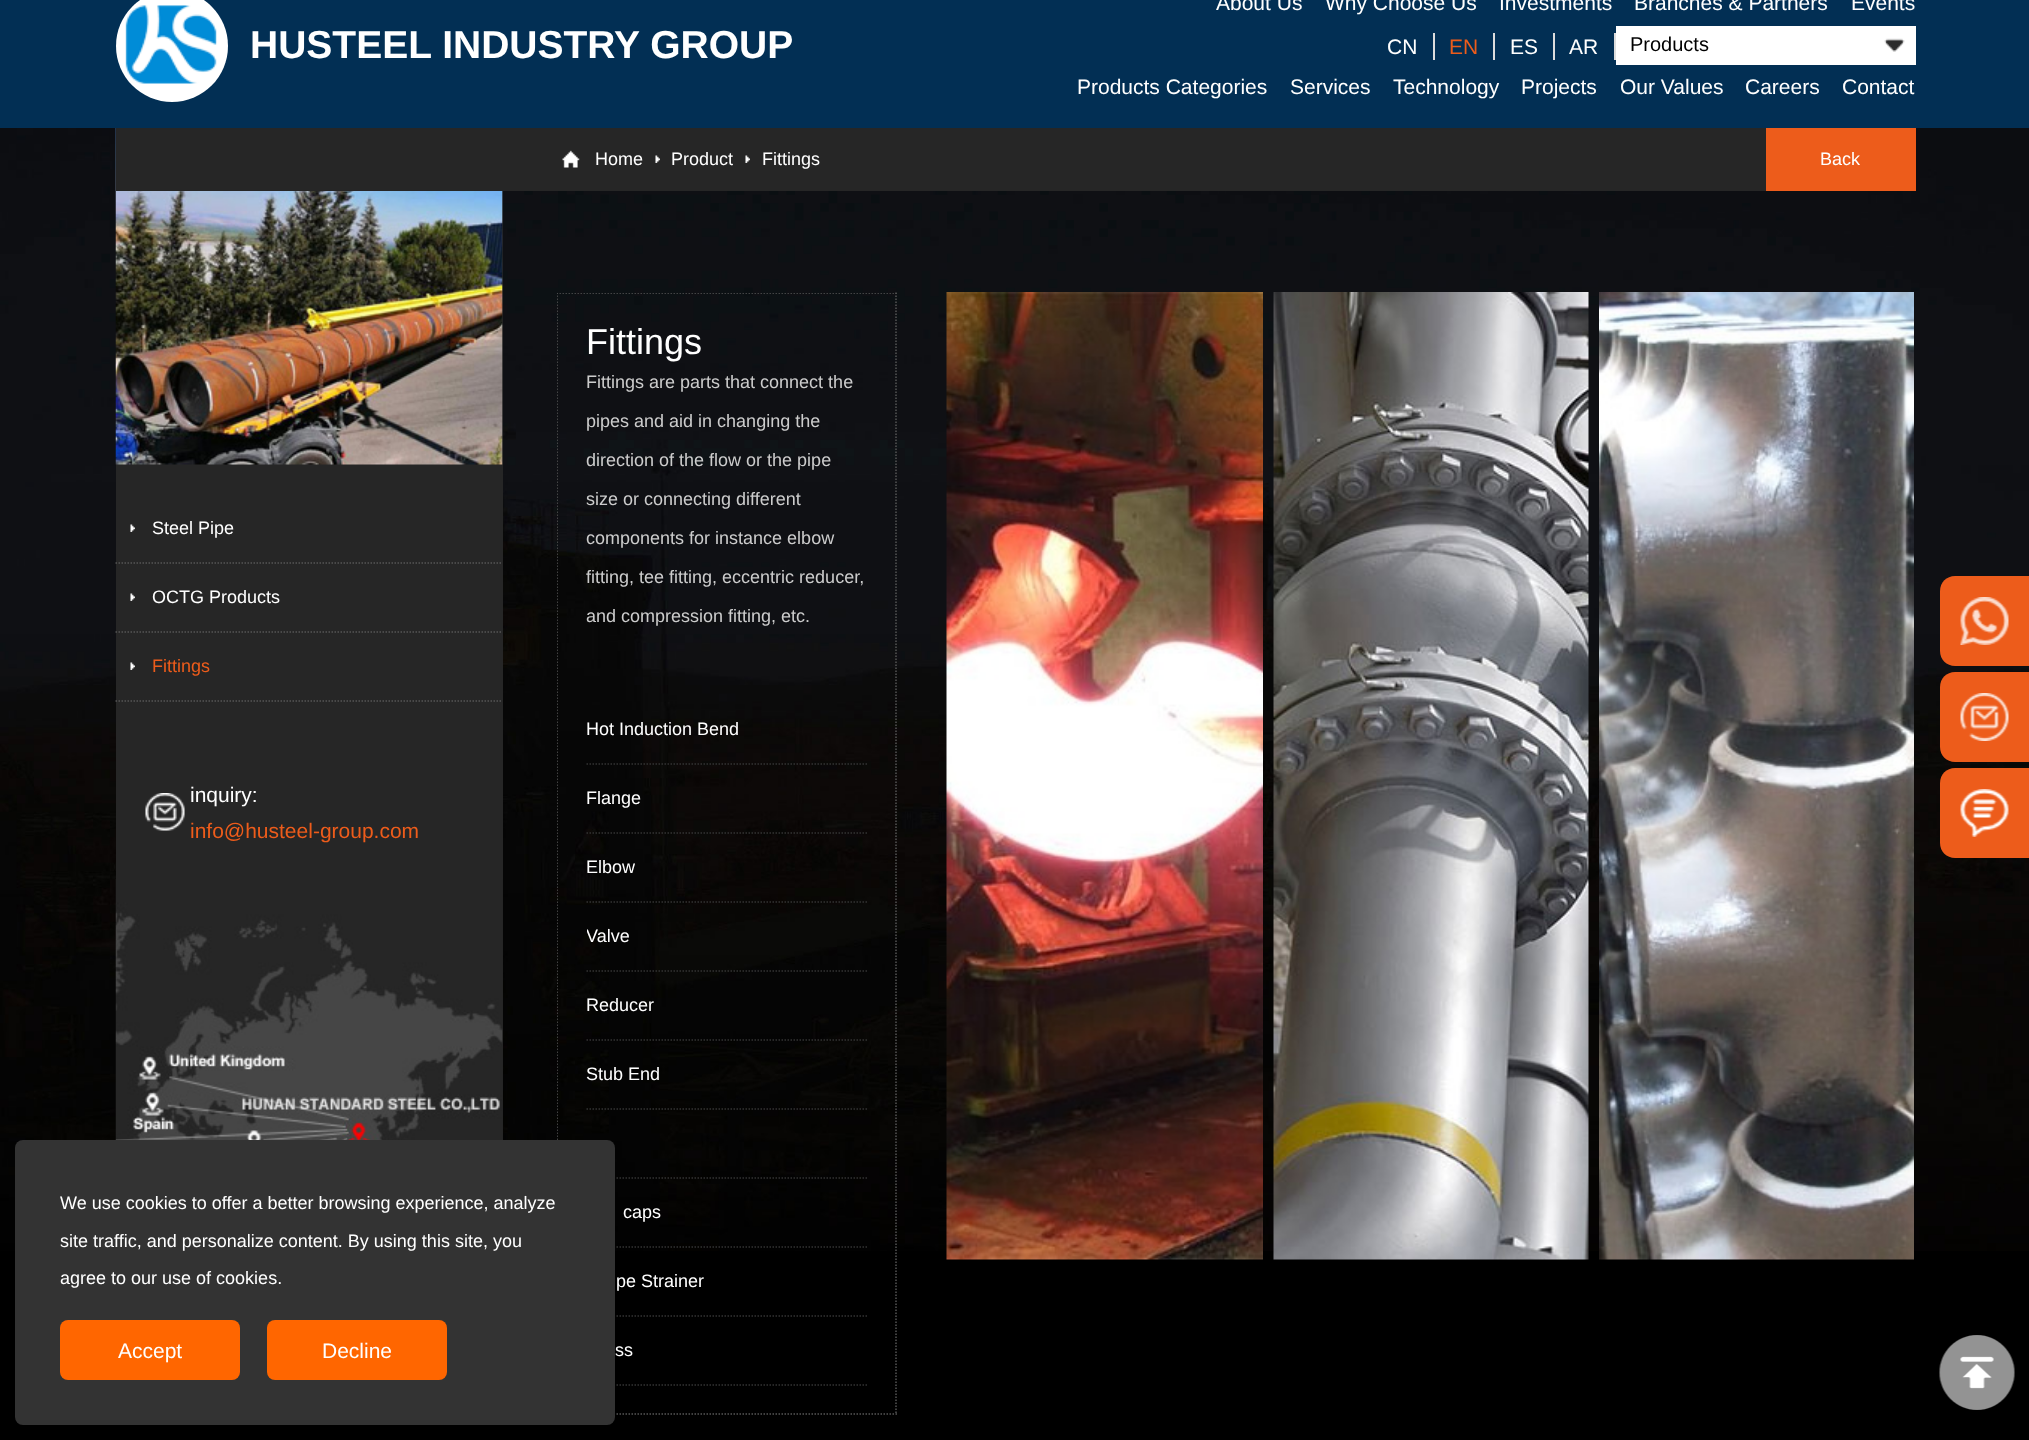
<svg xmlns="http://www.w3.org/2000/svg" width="2029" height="1440">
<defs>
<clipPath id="clip1"><rect x="557" y="293" width="1357" height="1122"/></clipPath>
<clipPath id="clip2"><rect x="587" y="903" width="282" height="68"/></clipPath>
</defs>
<rect width="100%" height="100%" fill="#000"/>
<rect width="2029" height="128" fill="#022f54"/>
<circle cx="172" cy="46" r="56" fill="#fff"/>
<image x="125" y="5" width="92" height="79" href="media/1.png"/>
<text x="250" y="58" style="font-family:Liberation Sans;font-size:39px;font-weight:bold;fill:#fff">HUSTEEL INDUSTRY GROUP</text>
<text x="1216" y="10" style="font-family:Liberation Sans;font-size:21px;fill:#fff">About Us</text>
<text x="1325" y="10" style="font-family:Liberation Sans;font-size:21px;fill:#fff">Why Choose Us</text>
<text x="1499" y="10" style="font-family:Liberation Sans;font-size:21px;fill:#fff">Investments</text>
<text x="1634" y="10" style="font-family:Liberation Sans;font-size:21px;fill:#fff">Branches &amp; Partners</text>
<text x="1851" y="10" style="font-family:Liberation Sans;font-size:21px;fill:#fff">Events</text>
<rect x="1433" y="33" width="2" height="27" fill="#ddd"/>
<text x="1387" y="54" style="font-family:Liberation Sans;font-size:21px;fill:#fff">CN</text>
<rect x="1493" y="33" width="2" height="27" fill="#ddd"/>
<text x="1449" y="54" style="font-family:Liberation Sans;font-size:21px;fill:#ed5c1b">EN</text>
<rect x="1553" y="33" width="2" height="27" fill="#ddd"/>
<text x="1510" y="54" style="font-family:Liberation Sans;font-size:21px;fill:#fff">ES</text>
<rect x="1614" y="33" width="2" height="27" fill="#ddd"/>
<text x="1569" y="54" style="font-family:Liberation Sans;font-size:21px;fill:#fff">AR</text>
<rect x="1616" y="26" width="300" height="39" fill="#fff"/>
<image x="1884" y="38" width="21" height="14" href="media/2.png"/>
<text x="1630" y="51" style="font-family:Liberation Sans;font-size:20px;fill:#000">Products</text>
<text x="1077" y="94" style="font-family:Liberation Sans;font-size:21px;fill:#fff">Products Categories</text>
<text x="1290" y="94" style="font-family:Liberation Sans;font-size:21px;fill:#fff">Services</text>
<text x="1393" y="94" style="font-family:Liberation Sans;font-size:21px;fill:#fff">Technology</text>
<text x="1521" y="94" style="font-family:Liberation Sans;font-size:21px;fill:#fff">Projects</text>
<text x="1620" y="94" style="font-family:Liberation Sans;font-size:21px;fill:#fff">Our Values</text>
<text x="1745" y="94" style="font-family:Liberation Sans;font-size:21px;fill:#fff">Careers</text>
<text x="1842" y="94" style="font-family:Liberation Sans;font-size:21px;fill:#fff">Contact</text>
<image x="0" y="128" width="2029" height="1123" href="media/3.png"/>
<rect x="116" y="191" width="387" height="949" fill="#262626"/>
<image x="115" y="128" width="388" height="337" href="media/6.png"/>
<rect x="116" y="128" width="1650" height="63" fill="#262626"/>
<image x="562" y="150" width="18" height="18" href="media/4.png"/>
<text x="595" y="165" style="font-family:Liberation Sans;font-size:18px;fill:#fff">Home</text>
<image x="655" y="155" width="5" height="8" href="media/5.png"/>
<text x="671" y="165" style="font-family:Liberation Sans;font-size:18px;fill:#fff">Product</text>
<image x="745" y="155" width="5" height="8" href="media/5.png"/>
<text x="762" y="165" style="font-family:Liberation Sans;font-size:18px;fill:#fff">Fittings</text>
<rect x="1766" y="128" width="150" height="63" fill="#ed5c1b"/>
<text x="1820" y="165" style="font-family:Liberation Sans;font-size:18px;fill:#fff">Back</text>
<image x="130" y="524" width="5" height="8" href="media/7.png"/>
<path d="M115.5 563h387" fill="none" stroke="#555" stroke-width="1.5" stroke-dasharray="1.5 1.5"/>
<text x="152" y="534" style="font-family:Liberation Sans;font-size:18px;fill:#fff">Steel Pipe</text>
<image x="130" y="593" width="5" height="8" href="media/7.png"/>
<path d="M115.5 632h387" fill="none" stroke="#555" stroke-width="1.5" stroke-dasharray="1.5 1.5"/>
<text x="152" y="603" style="font-family:Liberation Sans;font-size:18px;fill:#fff">OCTG Products</text>
<image x="130" y="662" width="5" height="8" href="media/7.png"/>
<path d="M115.5 701h387" fill="none" stroke="#555" stroke-width="1.5" stroke-dasharray="1.5 1.5"/>
<text x="152" y="672" style="font-family:Liberation Sans;font-size:18px;fill:#ed5c1b">Fittings</text>
<image x="145" y="793" width="40" height="38" href="media/8.png"/>
<text x="190" y="802" style="font-family:Liberation Sans;font-size:21px;fill:#fff">inquiry:</text>
<text x="190" y="838" style="font-family:Liberation Sans;font-size:21px;fill:#ed5c1b">info@husteel-group.com</text>
<image x="115" y="879" width="388" height="261" href="media/9.png"/>
<g clip-path="url(#clip1)">
<path d="M556.5 293h340.5" fill="none" stroke="#555" stroke-width="1.5" stroke-dasharray="1.5 1.5"/>
</g>
<path d="M896 292.5v1122" fill="none" stroke="#555" stroke-width="1.5" stroke-dasharray="1.5 1.5"/>
<path d="M556.5 1414h340.5" fill="none" stroke="#555" stroke-width="1.5" stroke-dasharray="1.5 1.5"/>
<g clip-path="url(#clip1)">
<path d="M557 292.5v1122" fill="none" stroke="#555" stroke-width="1.5" stroke-dasharray="1.5 1.5"/>
</g>
<text x="586" y="354" style="font-family:Liberation Sans;font-size:36px;fill:#fff">Fittings</text>
<text x="586" y="388" style="font-family:Liberation Sans;font-size:18px;fill:#ccc">Fittings are parts that connect the</text>
<text x="586" y="427" style="font-family:Liberation Sans;font-size:18px;fill:#ccc">pipes and aid in changing the</text>
<text x="586" y="466" style="font-family:Liberation Sans;font-size:18px;fill:#ccc">direction of the flow or the pipe</text>
<text x="586" y="505" style="font-family:Liberation Sans;font-size:18px;fill:#ccc">size or connecting different</text>
<text x="586" y="544" style="font-family:Liberation Sans;font-size:18px;fill:#ccc">components for instance elbow</text>
<text x="586" y="583" style="font-family:Liberation Sans;font-size:18px;fill:#ccc">fitting, tee fitting, eccentric reducer,</text>
<text x="586" y="622" style="font-family:Liberation Sans;font-size:18px;fill:#ccc">and compression fitting, etc.</text>
<path d="M586.5 764h282" fill="none" stroke="#333" stroke-width="1.5" stroke-dasharray="1.5 1.5"/>
<text x="586" y="735" style="font-family:Liberation Sans;font-size:18px;fill:#fff">Hot Induction Bend</text>
<path d="M586.5 833h282" fill="none" stroke="#333" stroke-width="1.5" stroke-dasharray="1.5 1.5"/>
<text x="586" y="804" style="font-family:Liberation Sans;font-size:18px;fill:#fff">Flange</text>
<path d="M586.5 902h282" fill="none" stroke="#333" stroke-width="1.5" stroke-dasharray="1.5 1.5"/>
<text x="586" y="873" style="font-family:Liberation Sans;font-size:18px;fill:#fff">Elbow</text>
<path d="M586.5 971h282" fill="none" stroke="#333" stroke-width="1.5" stroke-dasharray="1.5 1.5"/>
<g clip-path="url(#clip2)">
<text x="586" y="942" style="font-family:Liberation Sans;font-size:18px;fill:#fff">Valve</text>
</g>
<path d="M586.5 1040h282" fill="none" stroke="#333" stroke-width="1.5" stroke-dasharray="1.5 1.5"/>
<text x="586" y="1011" style="font-family:Liberation Sans;font-size:18px;fill:#fff">Reducer</text>
<path d="M586.5 1109h282" fill="none" stroke="#333" stroke-width="1.5" stroke-dasharray="1.5 1.5"/>
<text x="586" y="1080" style="font-family:Liberation Sans;font-size:18px;fill:#fff">Stub End</text>
<path d="M586.5 1178h282" fill="none" stroke="#333" stroke-width="1.5" stroke-dasharray="1.5 1.5"/>
<path d="M586.5 1247h282" fill="none" stroke="#333" stroke-width="1.5" stroke-dasharray="1.5 1.5"/>
<text x="623" y="1218" style="font-family:Liberation Sans;font-size:18px;fill:#fff">caps</text>
<path d="M586.5 1316h282" fill="none" stroke="#333" stroke-width="1.5" stroke-dasharray="1.5 1.5"/>
<text x="616" y="1287" style="font-family:Liberation Sans;font-size:18px;fill:#fff">pe Strainer</text>
<path d="M586.5 1385h282" fill="none" stroke="#333" stroke-width="1.5" stroke-dasharray="1.5 1.5"/>
<text x="615" y="1356" style="font-family:Liberation Sans;font-size:18px;fill:#fff">ss</text>
<image x="946" y="292" width="317" height="968" href="media/10.png"/>
<image x="1273" y="292" width="316" height="968" href="media/11.png"/>
<image x="1599" y="292" width="315" height="968" href="media/12.png"/>
<path d="M1955 576h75v90h-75c-8.5 0-15-6.5-15-15v-60c0-8.5 6.5-15 15-15z" fill="#ed5c1b"/>
<image x="1960" y="597" width="49" height="48" href="media/13.png"/>
<path d="M1955 672h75v90h-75c-8.5 0-15-6.5-15-15v-60c0-8.5 6.5-15 15-15z" fill="#ed5c1b"/>
<image x="1960" y="693" width="49" height="48" href="media/14.png"/>
<path d="M1955 768h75v90h-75c-8.5 0-15-6.5-15-15v-60c0-8.5 6.5-15 15-15z" fill="#ed5c1b"/>
<image x="1960" y="789" width="49" height="48" href="media/15.png"/>
<rect x="15" y="1140" width="600" height="285" rx="8" fill="#333"/>
<text x="60" y="1209" style="font-family:Liberation Sans;font-size:18px;fill:#fff">We use cookies to offer a better browsing experience, analyze</text>
<text x="60" y="1247" style="font-family:Liberation Sans;font-size:18px;fill:#fff">site traffic, and personalize content. By using this site, you</text>
<text x="60" y="1284" style="font-family:Liberation Sans;font-size:18px;fill:#fff">agree to our use of cookies.</text>
<rect x="60" y="1320" width="180" height="60" rx="8" fill="#f60"/>
<text x="118" y="1358" style="font-family:Liberation Sans;font-size:21px;fill:#fff">Accept</text>
<rect x="267" y="1320" width="180" height="60" rx="8" fill="#f60"/>
<text x="322" y="1358" style="font-family:Liberation Sans;font-size:21px;fill:#fff">Decline</text>
<image x="1939" y="1335" width="76" height="75" href="media/16.png"/>
</svg>
